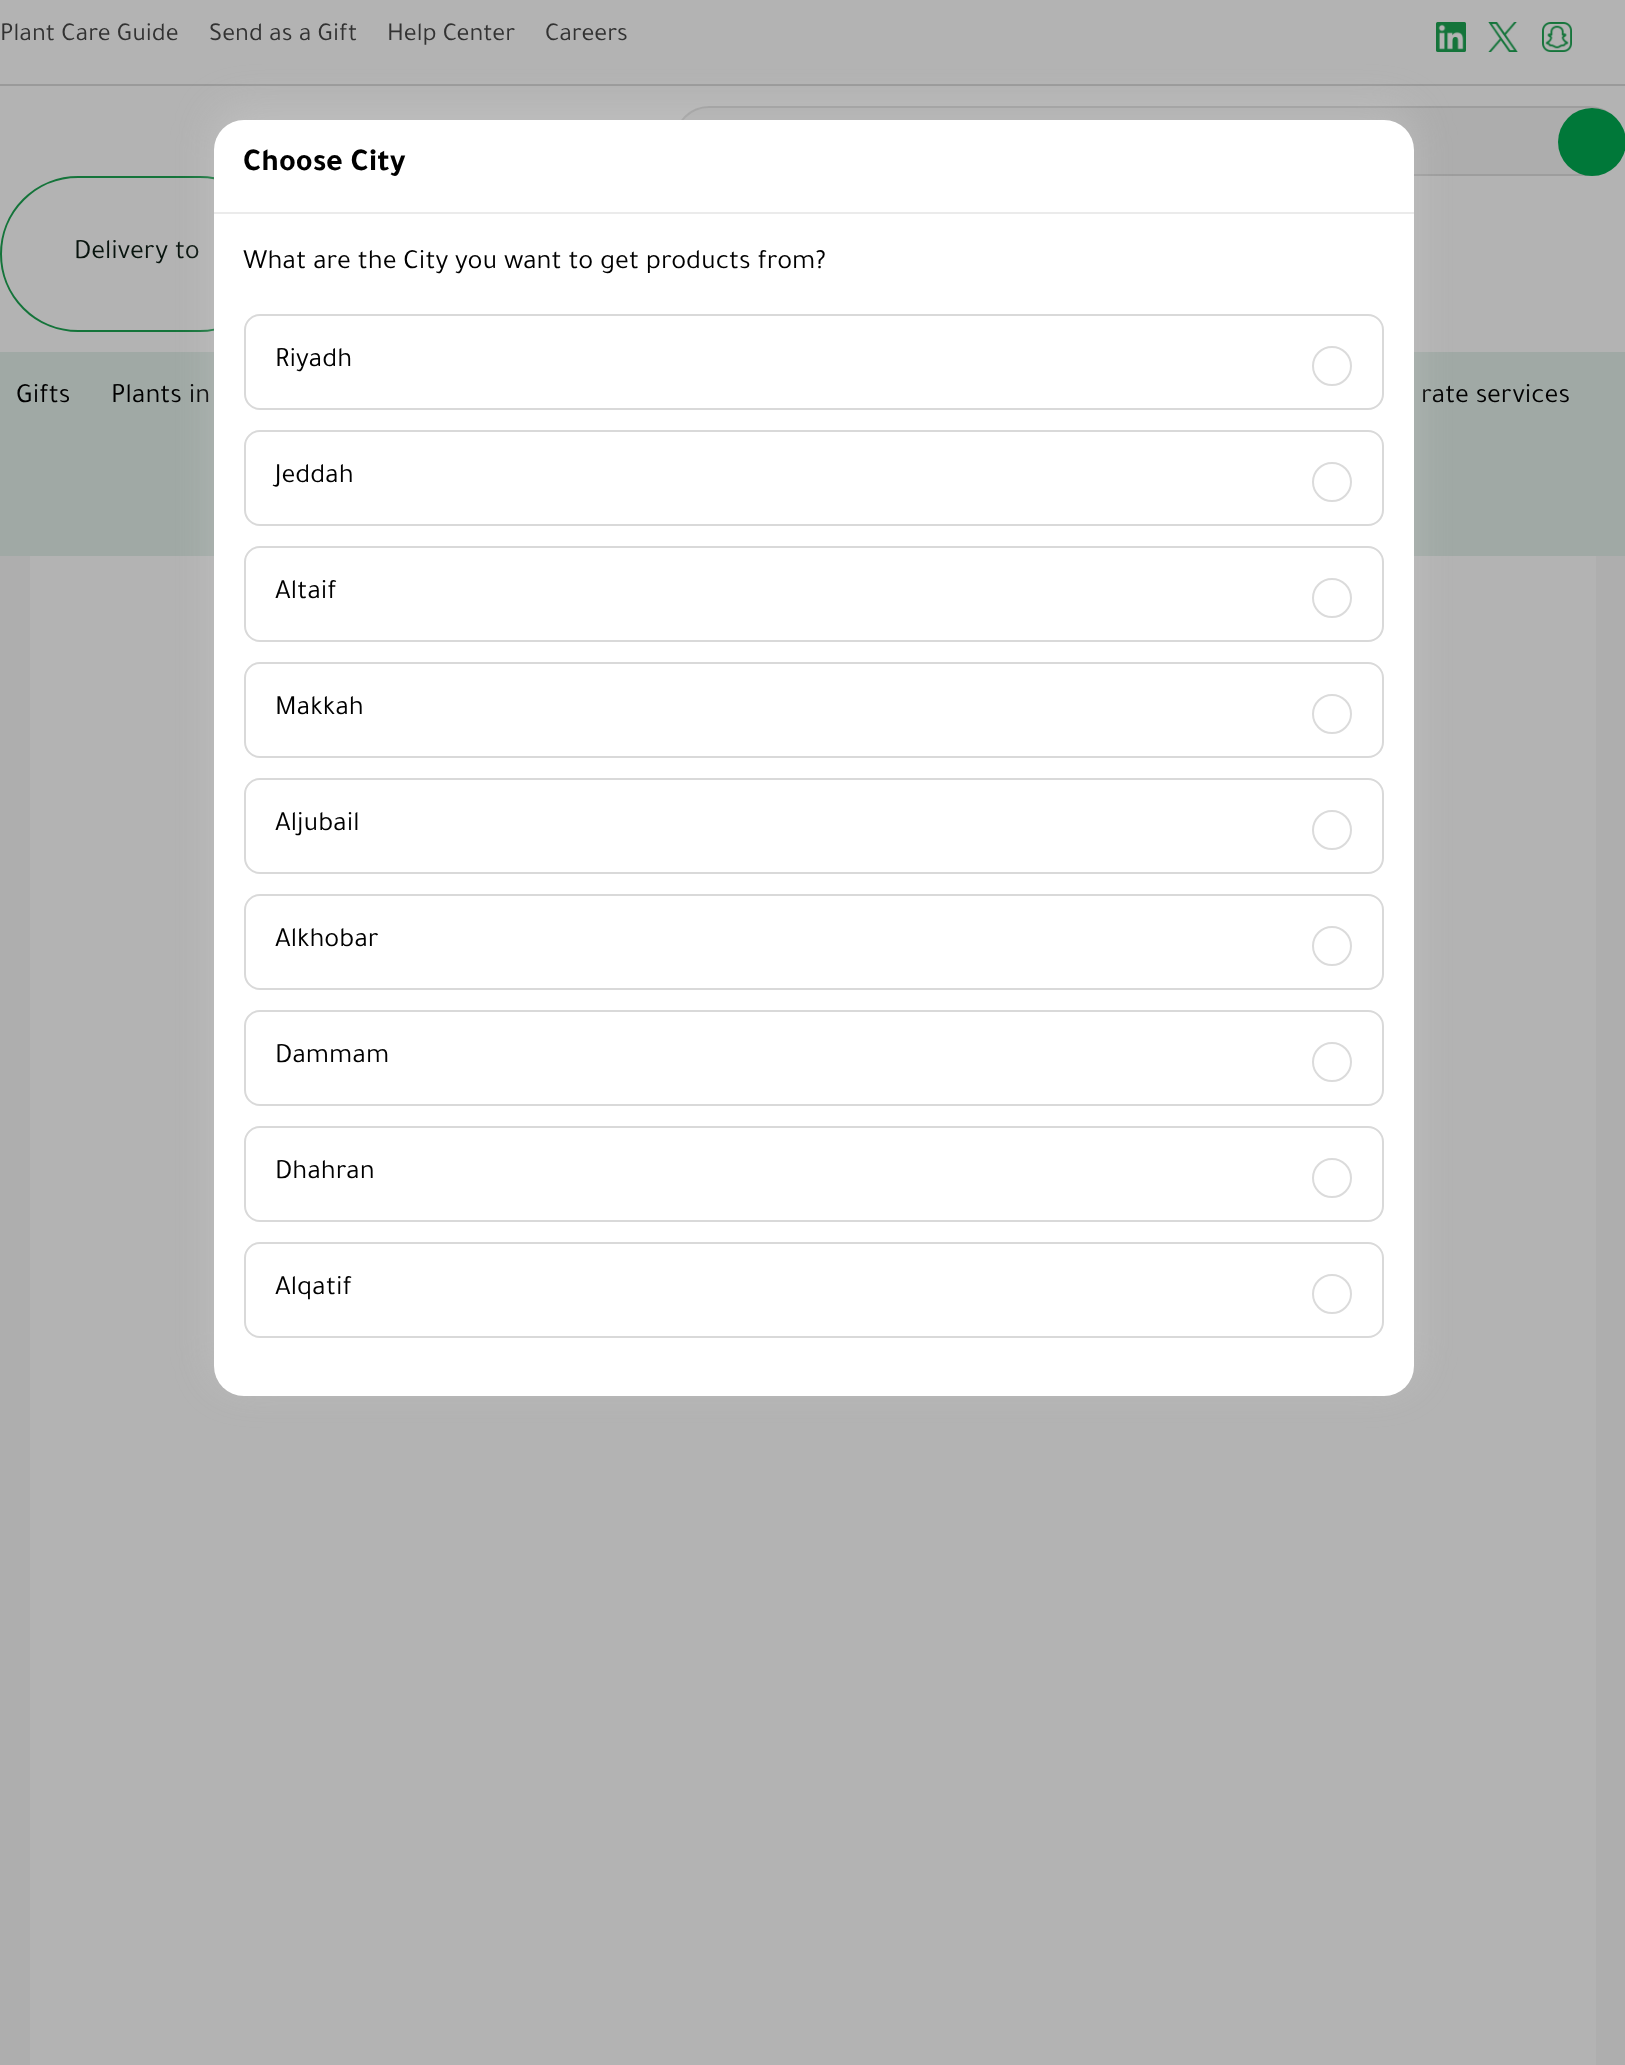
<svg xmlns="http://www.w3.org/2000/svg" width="1625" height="2065">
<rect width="100%" height="100%" fill="#b3b3b3"/>
<rect y="84" width="1625" height="2" fill="#9a9a9a"/>
<text x="0" y="40" style="font-family:Tajawal;font-size:26px;fill:#323232">Plant Care Guide</text>
<text x="209" y="40" style="font-family:Tajawal;font-size:26px;fill:#323232">Send as a Gift</text>
<text x="387" y="40" style="font-family:Tajawal;font-size:26px;fill:#323232">Help Center</text>
<text x="545" y="40" style="font-family:Tajawal;font-size:26px;fill:#323232">Careers</text>
<image x="1436" y="22" width="30" height="30" href="media/1.png"/>
<image x="1488" y="22" width="30" height="30" href="media/2.png"/>
<image x="1542" y="22" width="30" height="30" href="media/3.png"/>
<rect x="674" y="106" width="950" height="70" rx="35" fill="#adadad"/>
<rect x="675" y="107" width="948" height="68" rx="34" fill="none" stroke="#00000017" stroke-width="2"/>
<circle cx="1592" cy="142" r="34" fill="#007839"/>
<rect x="1" y="177" width="276" height="154" rx="77" fill="none" stroke="#14743a" stroke-width="2"/>
<text x="74" y="258" style="font-family:Tajawal;font-size:28px;fill:#08140e">Delivery to</text>
<rect y="352" width="1625" height="204" fill="#a0a9a5"/>
<text x="16" y="402" style="font-family:Tajawal;font-size:28px;fill:#000">Gifts</text>
<text x="111" y="402" style="font-family:Tajawal;font-size:28px;fill:#000">Plants in</text>
<text x="1421" y="402" style="font-family:Tajawal;font-size:28px;fill:#000">rate services</text>
<rect y="556" width="1625" height="1509" fill="#aeaeae"/>
<rect x="30" y="556" width="1566" height="1509" fill="#b3b3b3"/>
<rect x="214" y="108" width="1200" height="1276" rx="30" fill="#dbdbdb4d" filter="blur(20px)"/>
<rect x="214" y="120" width="1200" height="1276" rx="30" fill="#fff"/>
<rect x="214" y="212" width="1200" height="2" fill="#ebebeb"/>
<text x="243" y="170" style="font-family:Tajawal;font-size:32px;font-weight:bold;fill:#000">Choose City</text>
<text x="243" y="268" style="font-family:Tajawal;font-size:28px;fill:#000">What are the City you want to get products from?</text>
<rect x="245" y="315" width="1138" height="94" rx="15" fill="none" stroke="#d9d9d9" stroke-width="2"/>
<text x="275" y="366" style="font-family:Tajawal;font-size:28px;fill:#000">Riyadh</text>
<circle cx="1332" cy="366" r="19" fill="none" stroke="#dbdbdb" stroke-width="2"/>
<rect x="245" y="431" width="1138" height="94" rx="15" fill="none" stroke="#d9d9d9" stroke-width="2"/>
<text x="275" y="482" style="font-family:Tajawal;font-size:28px;fill:#000">Jeddah</text>
<circle cx="1332" cy="482" r="19" fill="none" stroke="#dbdbdb" stroke-width="2"/>
<rect x="245" y="547" width="1138" height="94" rx="15" fill="none" stroke="#d9d9d9" stroke-width="2"/>
<text x="275" y="598" style="font-family:Tajawal;font-size:28px;fill:#000">Altaif</text>
<circle cx="1332" cy="598" r="19" fill="none" stroke="#dbdbdb" stroke-width="2"/>
<rect x="245" y="663" width="1138" height="94" rx="15" fill="none" stroke="#d9d9d9" stroke-width="2"/>
<text x="275" y="714" style="font-family:Tajawal;font-size:28px;fill:#000">Makkah</text>
<circle cx="1332" cy="714" r="19" fill="none" stroke="#dbdbdb" stroke-width="2"/>
<rect x="245" y="779" width="1138" height="94" rx="15" fill="none" stroke="#d9d9d9" stroke-width="2"/>
<text x="275" y="830" style="font-family:Tajawal;font-size:28px;fill:#000">Aljubail</text>
<circle cx="1332" cy="830" r="19" fill="none" stroke="#dbdbdb" stroke-width="2"/>
<rect x="245" y="895" width="1138" height="94" rx="15" fill="none" stroke="#d9d9d9" stroke-width="2"/>
<text x="275" y="946" style="font-family:Tajawal;font-size:28px;fill:#000">Alkhobar</text>
<circle cx="1332" cy="946" r="19" fill="none" stroke="#dbdbdb" stroke-width="2"/>
<rect x="245" y="1011" width="1138" height="94" rx="15" fill="none" stroke="#d9d9d9" stroke-width="2"/>
<text x="275" y="1062" style="font-family:Tajawal;font-size:28px;fill:#000">Dammam</text>
<circle cx="1332" cy="1062" r="19" fill="none" stroke="#dbdbdb" stroke-width="2"/>
<rect x="245" y="1127" width="1138" height="94" rx="15" fill="none" stroke="#d9d9d9" stroke-width="2"/>
<text x="275" y="1178" style="font-family:Tajawal;font-size:28px;fill:#000">Dhahran</text>
<circle cx="1332" cy="1178" r="19" fill="none" stroke="#dbdbdb" stroke-width="2"/>
<rect x="245" y="1243" width="1138" height="94" rx="15" fill="none" stroke="#d9d9d9" stroke-width="2"/>
<text x="275" y="1294" style="font-family:Tajawal;font-size:28px;fill:#000">Alqatif</text>
<circle cx="1332" cy="1294" r="19" fill="none" stroke="#dbdbdb" stroke-width="2"/>
</svg>
